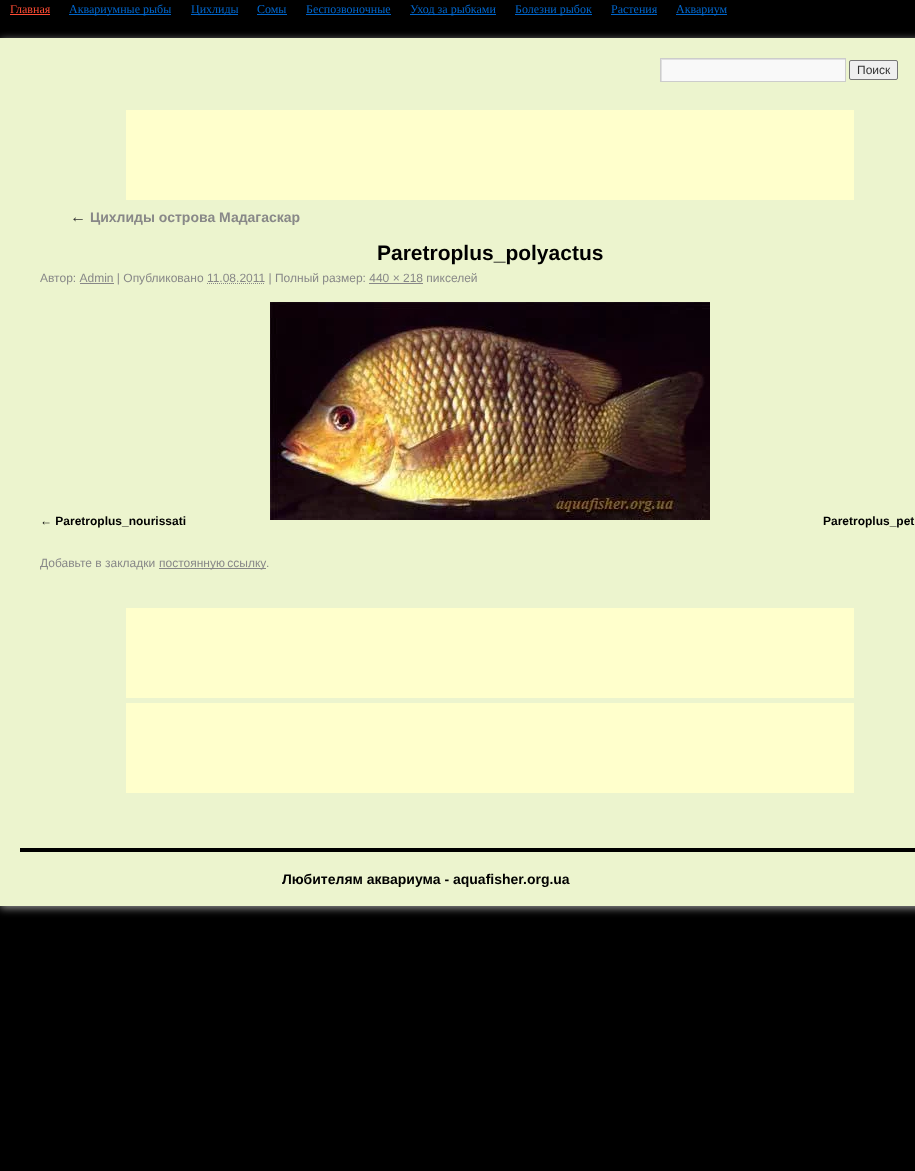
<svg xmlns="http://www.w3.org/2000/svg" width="915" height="1171">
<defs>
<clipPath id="clip1"><rect x="661" y="59" width="184" height="22"/></clipPath>
</defs>
<rect width="100%" height="100%" fill="#000"/>
<text x="10" y="13" style="font-family:Liberation Serif;font-size:12px;fill:#ff4b33">Главная</text>
<rect x="10" y="14" width="40" height="1" fill="#ff4b33"/>
<rect x="69" y="14" width="102" height="1" fill="#06c"/>
<text x="69" y="13" style="font-family:Liberation Serif;font-size:12px;fill:#06c">Аквариумные рыбы</text>
<rect x="191" y="14" width="47" height="1" fill="#06c"/>
<text x="191" y="13" style="font-family:Liberation Serif;font-size:12px;fill:#06c">Цихлиды</text>
<text x="257" y="13" style="font-family:Liberation Serif;font-size:12px;fill:#06c">Сомы</text>
<rect x="257" y="14" width="30" height="1" fill="#06c"/>
<text x="306" y="13" style="font-family:Liberation Serif;font-size:12px;fill:#06c">Беспозвоночные</text>
<rect x="306" y="14" width="85" height="1" fill="#06c"/>
<rect x="410" y="14" width="86" height="1" fill="#06c"/>
<text x="410" y="13" style="font-family:Liberation Serif;font-size:12px;fill:#06c">Уход за рыбками</text>
<rect x="515" y="14" width="77" height="1" fill="#06c"/>
<text x="515" y="13" style="font-family:Liberation Serif;font-size:12px;fill:#06c">Болезни рыбок</text>
<text x="611" y="13" style="font-family:Liberation Serif;font-size:12px;fill:#06c">Растения</text>
<rect x="611" y="14" width="46" height="1" fill="#06c"/>
<rect x="676" y="14" width="51" height="1" fill="#06c"/>
<text x="676" y="13" style="font-family:Liberation Serif;font-size:12px;fill:#06c">Аквариум</text>
<rect y="40" width="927" height="868" fill="#999" filter="blur(4px)"/>
<rect y="38" width="915" height="868" fill="#ecf4ce"/>
<rect x="662" y="60" width="183" height="21" fill="#f9f9f9"/>
<g clip-path="url(#clip1)">
<path d="M562-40h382v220h-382zm100 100h184v22h-184z" fill="#e0e0e0" fill-rule="evenodd"/>
</g>
<rect x="660.5" y="58.5" width="185" height="23" fill="none" stroke="#ccc"/>
<rect x="849.5" y="60.5" width="48" height="19" rx="1.5" fill="#efefef" stroke="#767676"/>
<text x="857" y="74" style="font-family:Liberation Sans;font-size:12px;fill:#333">Поиск</text>
<rect x="126" y="110" width="728" height="90" fill="#ffc"/>
<text x="70" y="222" style="font-family:Liberation Serif;font-size:16px;font-style:italic;fill:#333">←</text>
<text x="90" y="222" style="font-family:Liberation Sans;font-size:14px;font-weight:bold;fill:#888">Цихлиды острова Мадагаскар</text>
<text x="377" y="260" style="font-family:Liberation Sans;font-size:21px;font-weight:bold;fill:#000">Paretroplus_polyactus</text>
<text x="40" y="282" style="font-family:Liberation Sans;font-size:12px;fill:#888">Автор: Admin | Опубликовано 11.08.2011 | Полный размер: 440 × 218 пикселей</text>
<rect x="80" y="283" width="34" height="1" fill="#888"/>
<path d="M207 283.5h58" fill="none" stroke="#888" stroke-dasharray="1 1"/>
<rect x="369" y="283" width="54" height="1" fill="#888"/>
<image x="270" y="302" width="440" height="218" href="media/1.png"/>
<text x="40" y="525" style="font-family:Liberation Sans;font-size:12px;font-weight:bold;fill:#000">← Paretroplus_nourissati</text>
<text x="823" y="525" style="font-family:Liberation Sans;font-size:12px;font-weight:bold;fill:#000">Paretroplus_pet</text>
<text x="40" y="567" style="font-family:Liberation Sans;font-size:12px;fill:#888">Добавьте в закладки</text>
<rect x="159" y="568" width="107" height="1" fill="#888"/>
<text x="159" y="567" word-spacing="-1" style="font-family:Liberation Sans;font-size:12px;fill:#888">постоянную ссылку</text>
<text x="266" y="567" style="font-family:Liberation Sans;font-size:12px;fill:#888">.</text>
<rect x="126" y="608" width="728" height="90" fill="#ffc"/>
<rect x="126" y="703" width="728" height="90" fill="#ffc"/>
<rect x="20" y="848" width="895" height="4" fill="#000"/>
<text x="282" y="884" style="font-family:Liberation Sans;font-size:14px;font-weight:bold;fill:#000">Любителям аквариума - aquafisher.org.ua</text>
</svg>
